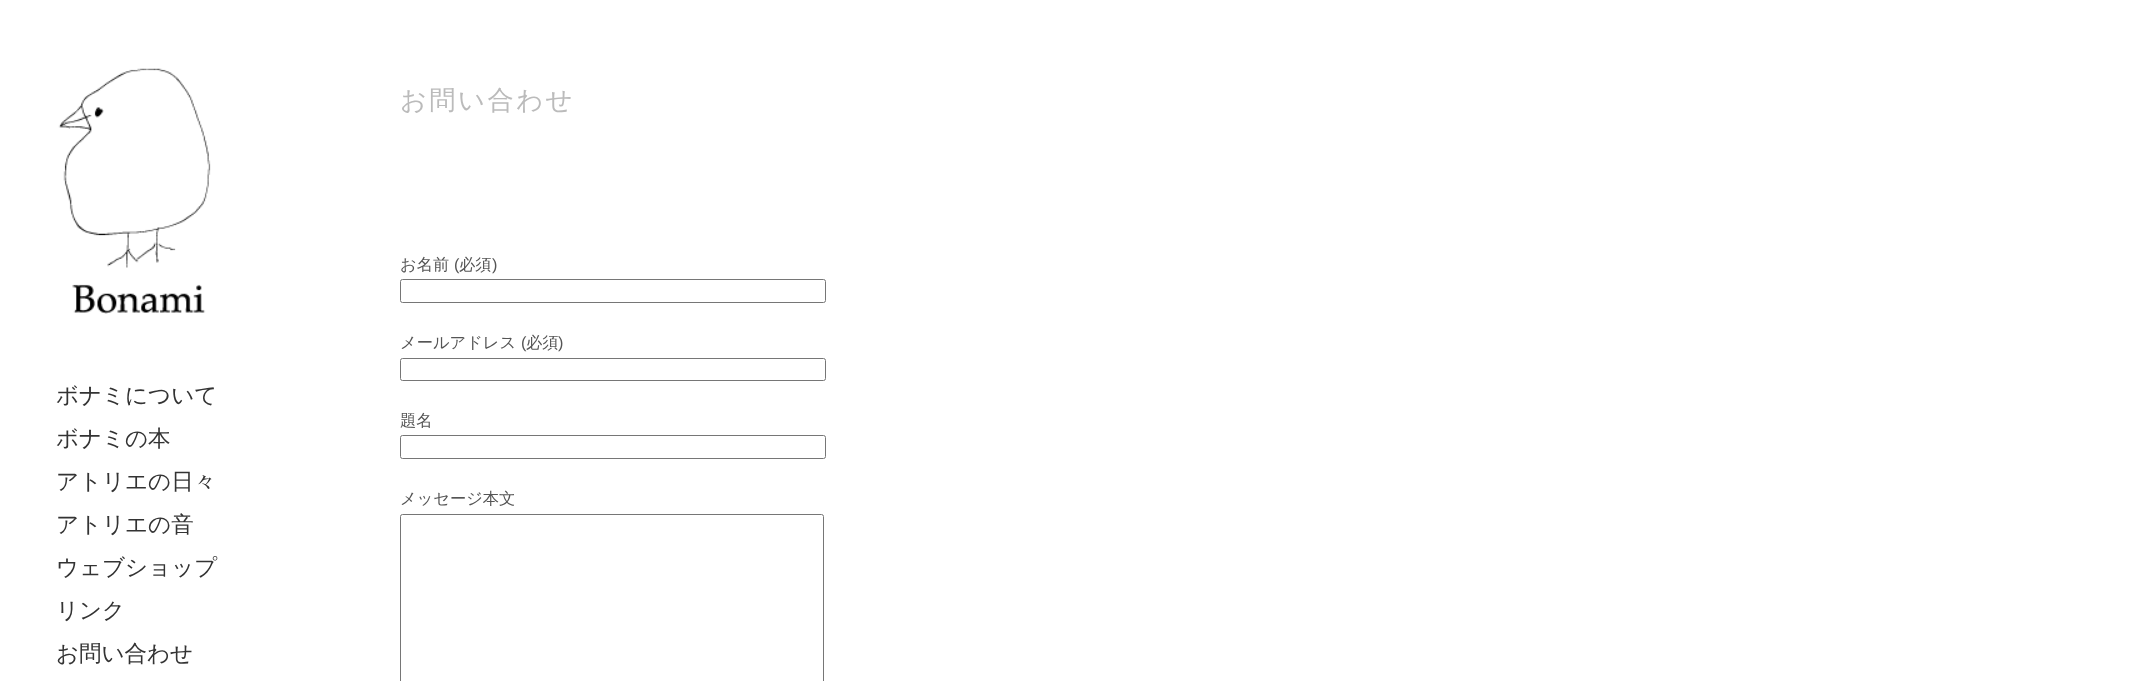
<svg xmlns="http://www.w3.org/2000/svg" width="2130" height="681">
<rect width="100%" height="100%" fill="#fff"/>
<image x="58" y="68" width="153" height="246" href="media/1.png"/>
<text x="56" y="403" style="font-family:WenQuanYi Zen Hei;font-size:22.5px;font-weight:500;fill:#333">ボナミについて</text>
<text x="56" y="446" style="font-family:WenQuanYi Zen Hei;font-size:22.5px;font-weight:500;fill:#333">ボナミの本</text>
<text x="56" y="489" style="font-family:WenQuanYi Zen Hei;font-size:22.5px;font-weight:500;fill:#333">アトリエの日々</text>
<text x="56" y="532" style="font-family:WenQuanYi Zen Hei;font-size:22.5px;font-weight:500;fill:#333">アトリエの音</text>
<text x="56" y="575" style="font-family:WenQuanYi Zen Hei;font-size:22.5px;font-weight:500;fill:#333">ウェブショップ</text>
<text x="56" y="618" style="font-family:WenQuanYi Zen Hei;font-size:22.5px;font-weight:500;fill:#333">リンク</text>
<text x="56" y="661" style="font-family:WenQuanYi Zen Hei;font-size:22.5px;font-weight:500;fill:#333">お問い合わせ</text>
<text x="400" y="109" style="font-family:WenQuanYi Zen Hei;font-size:26.25px;font-weight:500;letter-spacing:2.5px;fill:#bbb">お問い合わせ</text>
<text x="400" y="270" style="font-family:WenQuanYi Zen Hei;font-size:16.25px;font-weight:500;fill:#555">お名前</text>
<text x="454" y="270" style="font-family:Liberation Sans;font-size:16.25px;fill:#555">(</text>
<text x="459" y="270" style="font-family:WenQuanYi Zen Hei;font-size:16.25px;font-weight:500;fill:#555">必須</text>
<text x="492" y="270" style="font-family:Liberation Sans;font-size:16.25px;fill:#555">)</text>
<rect x="400.5" y="279.5" width="425" height="23" rx="2" fill="none" stroke="#767676"/>
<text x="400" y="348" style="font-family:WenQuanYi Zen Hei;font-size:16.25px;font-weight:500;fill:#555">メールアドレス</text>
<text x="521" y="348" style="font-family:Liberation Sans;font-size:16.25px;fill:#555">(</text>
<text x="526" y="348" style="font-family:WenQuanYi Zen Hei;font-size:16.25px;font-weight:500;fill:#555">必須</text>
<text x="558" y="348" style="font-family:Liberation Sans;font-size:16.25px;fill:#555">)</text>
<rect x="400.5" y="358.5" width="425" height="22" rx="2" fill="none" stroke="#767676"/>
<text x="400" y="426" style="font-family:WenQuanYi Zen Hei;font-size:16.25px;font-weight:500;fill:#555">題名</text>
<rect x="400.5" y="435.5" width="425" height="23" rx="2" fill="none" stroke="#767676"/>
<text x="400" y="504" style="font-family:WenQuanYi Zen Hei;font-size:16.25px;font-weight:500;fill:#555">メッセージ本文</text>
<rect x="400.5" y="514.5" width="423" height="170" rx="2" fill="none" stroke="#767676"/>
</svg>
